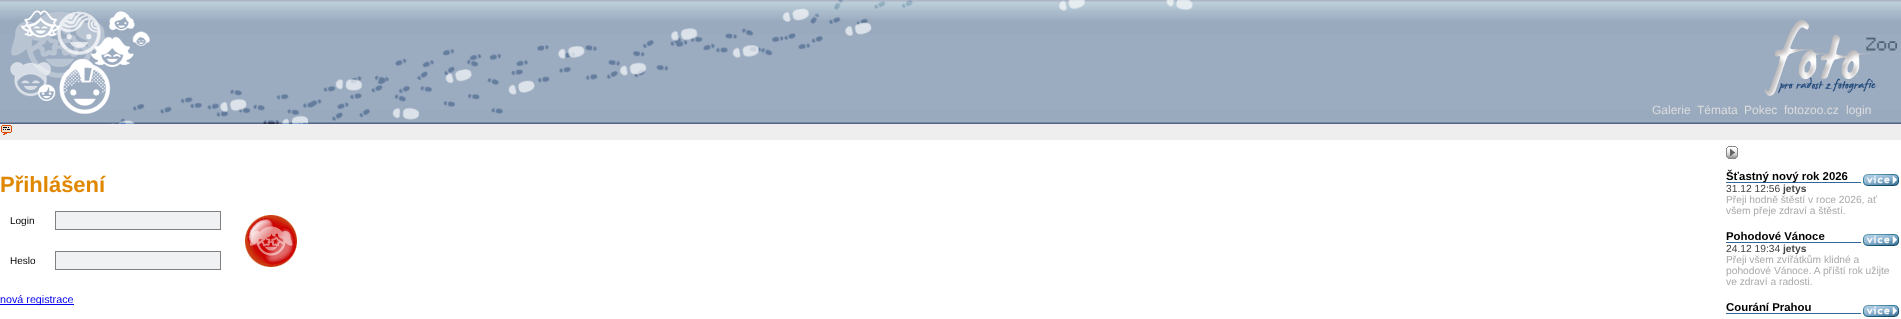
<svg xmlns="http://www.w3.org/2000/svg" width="1901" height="319">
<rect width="100%" height="100%" fill="#fff"/>
<image x="0" y="0" width="1901" height="124" href="media/1.png"/>
<image x="10" y="10" width="140" height="104" href="media/2.png"/>
<image x="1764" y="20" width="133" height="76" href="media/3.png"/>
<text x="1652" y="114" style="font-family:Liberation Sans;font-size:12px;fill:#ddd">Galerie</text>
<text x="1697" y="114" style="font-family:Liberation Sans;font-size:12px;fill:#ddd">Témata</text>
<text x="1744" y="114" style="font-family:Liberation Sans;font-size:12px;fill:#ddd">Pokec</text>
<text x="1784" y="114" style="font-family:Liberation Sans;font-size:12px;fill:#ddd">fotozoo.cz</text>
<text x="1846" y="114" style="font-family:Liberation Sans;font-size:12px;fill:#ddd">login</text>
<rect y="124" width="1901" height="16" fill="#eee"/>
<image x="1" y="125" width="11" height="10" href="media/4.png"/>
<image x="1726" y="146" width="12" height="13" href="media/5.png"/>
<text x="0" y="192" style="font-family:Liberation Sans;font-size:22px;font-weight:bold;fill:#e08700">Přihlášení</text>
<text x="10" y="224" style="font-family:Liberation Sans;font-size:10px;fill:#000">Login</text>
<rect x="55.5" y="211.5" width="165" height="18" fill="#f0f1f2" stroke="#808080"/>
<image x="245" y="215" width="52" height="52" href="media/6.png"/>
<text x="10" y="264" style="font-family:Liberation Sans;font-size:10px;fill:#000">Heslo</text>
<rect x="55.5" y="251.5" width="165" height="18" fill="#f0f1f2" stroke="#808080"/>
<rect y="304" width="74" height="1" fill="#00e"/>
<text x="0" y="303" style="font-family:Liberation Sans;font-size:10.75px;fill:#00e">nová registrace</text>
<rect x="1726" y="182" width="135" height="1" fill="#369"/>
<text x="1726" y="180" style="font-family:Liberation Sans;font-size:11.4px;font-weight:bold;fill:#000">Šťastný nový rok 2026</text>
<image x="1861" y="174" width="40" height="12" href="media/7.png"/>
<text x="1726" y="192" style="font-family:Liberation Sans;font-size:10.25px;fill:#444">31.12 12:56</text>
<text x="1783" y="192" style="font-family:Liberation Sans;font-size:10.25px;font-weight:bold;fill:#444">jetys</text>
<text x="1726" y="203" style="font-family:Liberation Sans;font-size:10.25px;fill:#aaa">Přeji hodně štěstí v roce 2026, ať</text>
<text x="1726" y="214" style="font-family:Liberation Sans;font-size:10.25px;fill:#aaa">všem přeje zdraví a štěstí.</text>
<rect x="1726" y="242" width="135" height="1" fill="#369"/>
<text x="1726" y="240" style="font-family:Liberation Sans;font-size:11.4px;font-weight:bold;fill:#000">Pohodové Vánoce</text>
<image x="1861" y="234" width="40" height="12" href="media/7.png"/>
<text x="1726" y="252" style="font-family:Liberation Sans;font-size:10.25px;fill:#444">24.12 19:34</text>
<text x="1783" y="252" style="font-family:Liberation Sans;font-size:10.25px;font-weight:bold;fill:#444">jetys</text>
<text x="1726" y="263" style="font-family:Liberation Sans;font-size:10.25px;fill:#aaa">Přeji všem zvířátkům klidné a</text>
<text x="1726" y="274" style="font-family:Liberation Sans;font-size:10.25px;fill:#aaa">pohodové Vánoce. A příští rok užijte</text>
<text x="1726" y="285" style="font-family:Liberation Sans;font-size:10.25px;fill:#aaa">ve zdraví a radosti.</text>
<rect x="1726" y="313" width="135" height="1" fill="#369"/>
<text x="1726" y="311" style="font-family:Liberation Sans;font-size:11.4px;font-weight:bold;fill:#000">Courání Prahou</text>
<image x="1861" y="305" width="40" height="12" href="media/7.png"/>
</svg>
